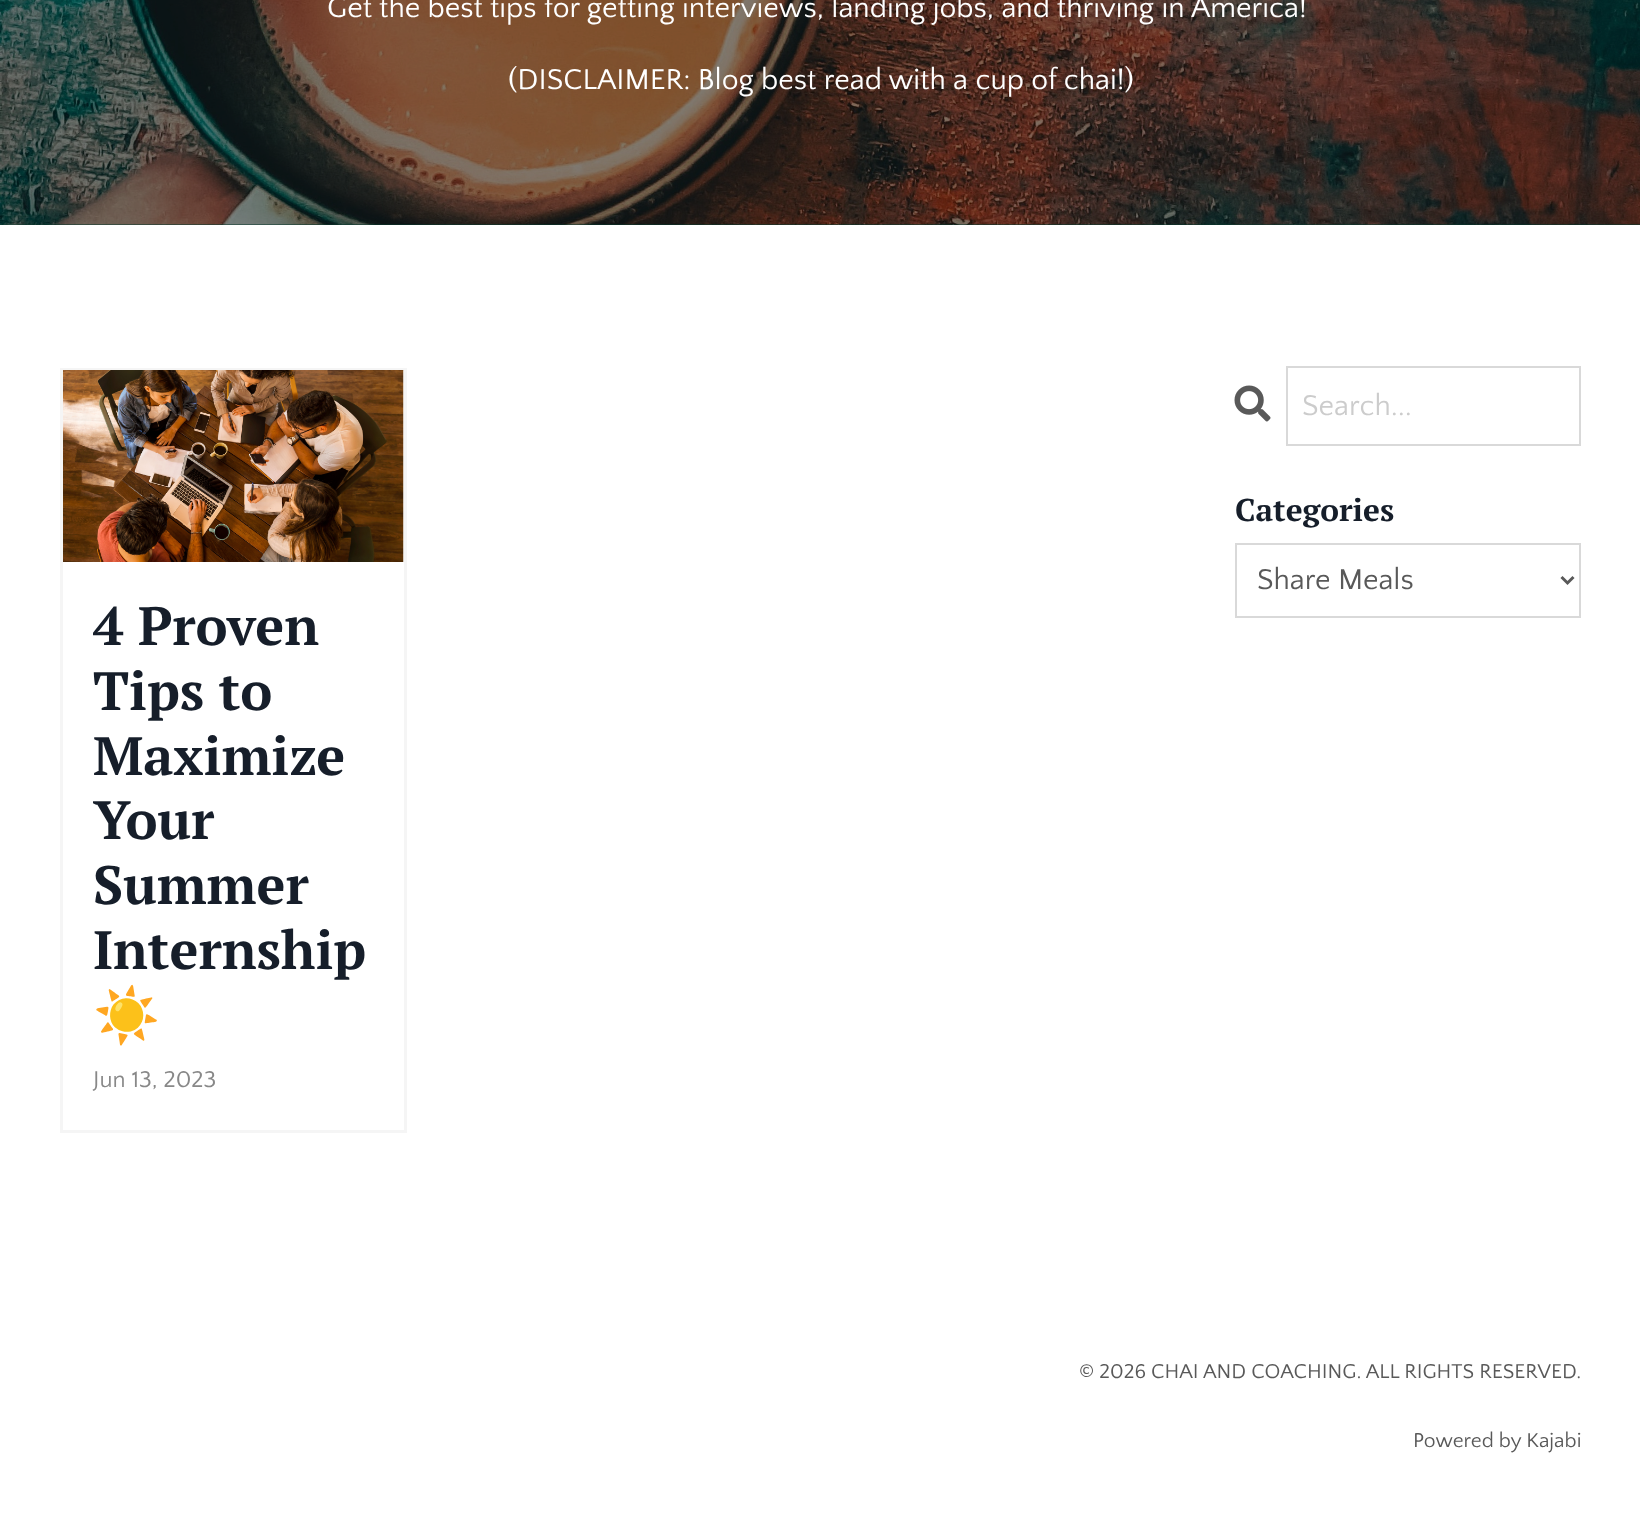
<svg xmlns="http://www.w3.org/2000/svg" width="1640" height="1517">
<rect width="100%" height="100%" fill="#09382d"/>
<image x="0" y="0" width="1640" height="225" href="media/1.png"/>
<text x="327" y="17" style="font-family:Quattrocento Sans;font-size:30px;fill:#fff">Get the best tips for getting interviews, landing jobs, and thriving in America!</text>
<text x="508" y="89" style="font-family:Quattrocento Sans;font-size:30px;fill:#fff">(DISCLAIMER: Blog best read with a cup of chai!)</text>
<rect y="225" width="1640" height="1292" fill="#fff"/>
<image x="1234" y="385" width="37" height="37" href="media/2.png"/>
<rect x="1287" y="367" width="293" height="78" fill="none" stroke="#d9d9d9" stroke-width="2"/>
<text x="1302" y="415" style="font-family:Quattrocento Sans;font-size:30px;fill:#ccc">Search...</text>
<text x="1235" y="521" style="font-family:PT Serif;font-size:31.5px;font-weight:bold;fill:#161e2a">Categories</text>
<rect x="1236" y="544" width="344" height="73" fill="none" stroke="#d9d9d9" stroke-width="2"/>
<path d="M1561.5 577l6 6l6-6" fill="none" stroke="#595959" stroke-width="3"/>
<text x="1257" y="589" style="font-family:Quattrocento Sans;font-size:30px;fill:#595959">Share Meals</text>
<rect x="61.5" y="369.5" width="344" height="762" fill="none" stroke="#f5f5f5" stroke-width="3"/>
<image x="63" y="370" width="341" height="192" href="media/3.png"/>
<text x="93" y="645" style="font-family:PT Serif;font-size:54px;font-weight:bold;fill:#161e2a">4 Proven</text>
<text x="93" y="710" style="font-family:PT Serif;font-size:54px;font-weight:bold;fill:#161e2a">Tips to</text>
<text x="93" y="775" style="font-family:PT Serif;font-size:54px;font-weight:bold;fill:#161e2a">Maximize</text>
<text x="93" y="839" style="font-family:PT Serif;font-size:54px;font-weight:bold;fill:#161e2a">Your</text>
<text x="93" y="904" style="font-family:PT Serif;font-size:54px;font-weight:bold;fill:#161e2a">Summer</text>
<text x="93" y="969" style="font-family:PT Serif;font-size:54px;font-weight:bold;fill:#161e2a">Internship</text>
<text x="93" y="1034" style="font-family:Noto Color Emoji;font-size:54px;font-weight:bold;fill:#161e2a">☀️</text>
<text x="93" y="1087" style="font-family:Quattrocento Sans;font-size:24px;fill:#888">Jun 13, 2023</text>
<text x="1079" y="1378" style="font-family:Quattrocento Sans;font-size:21px;fill:#595959">© 2026 CHAI AND COACHING. ALL RIGHTS RESERVED.</text>
<text x="1413" y="1447" style="font-family:Quattrocento Sans;font-size:21px;fill:#595959">Powered by Kajabi</text>
</svg>
